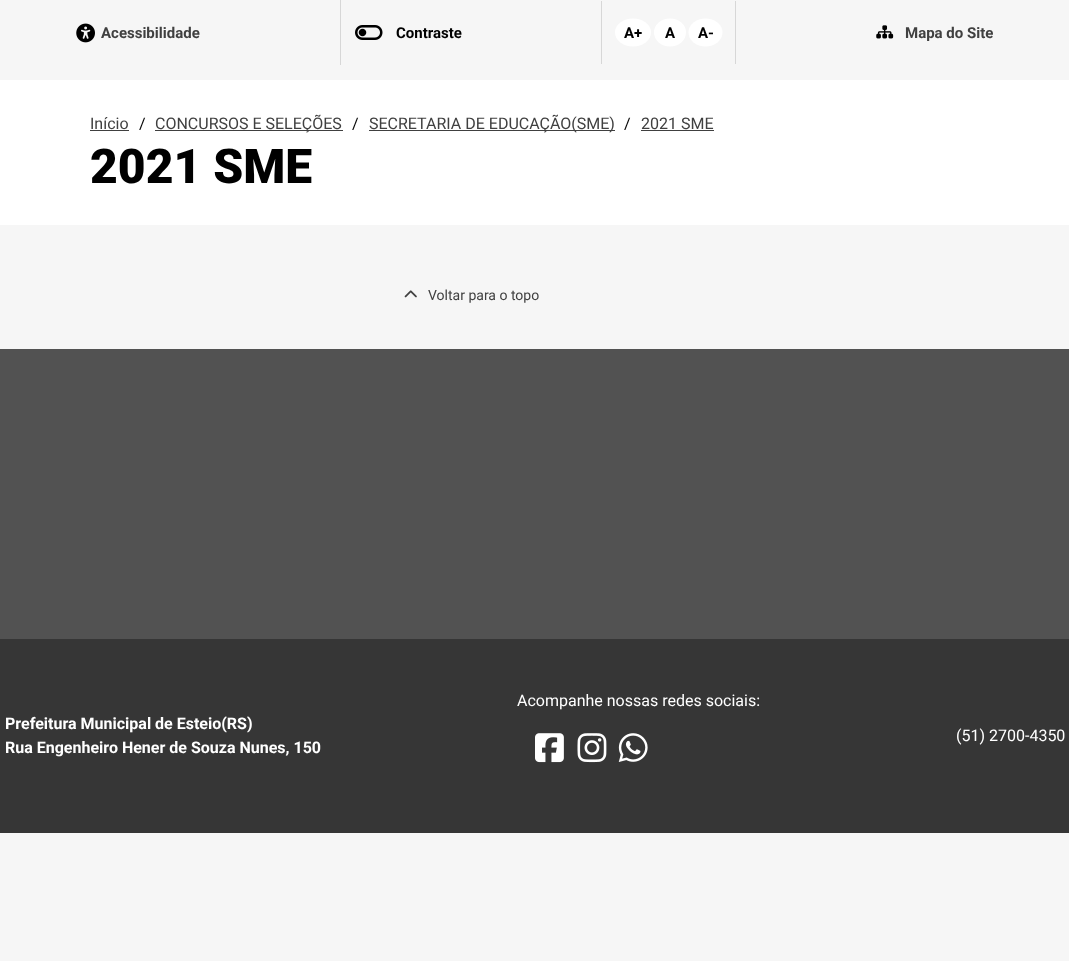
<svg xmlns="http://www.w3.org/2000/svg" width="1069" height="961">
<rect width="100%" height="100%" fill="#f6f6f6"/>
<image x="76" y="23" width="19" height="20" href="media/1.png"/>
<text x="101" y="38" style="font-family:Roboto;font-size:15px;font-weight:bold;fill:#404040">Acessibilidade</text>
<rect x="340" width="1" height="65" fill="#d7d7d7"/>
<image x="355" y="25" width="28" height="15" href="media/2.png"/>
<text x="396" y="38" style="font-family:Roboto;font-size:15px;font-weight:bold;fill:#000">Contraste</text>
<rect x="735" y="1" width="1" height="63" fill="#d7d7d7"/>
<rect x="601" y="1" width="1" height="63" fill="#d7d7d7"/>
<ellipse cx="633" cy="32.5" rx="18" ry="14" fill="#fff"/>
<text x="624" y="38" style="font-family:Roboto;font-size:15px;font-weight:bold;fill:#000">A+</text>
<ellipse cx="670" cy="32.5" rx="16" ry="14" fill="#fff"/>
<text x="665" y="38" style="font-family:Roboto;font-size:15px;font-weight:bold;fill:#000">A</text>
<ellipse cx="705.5" cy="32.5" rx="17" ry="14" fill="#fff"/>
<text x="698" y="38" style="font-family:Roboto;font-size:15px;font-weight:bold;fill:#000">A-</text>
<image x="876" y="25" width="18" height="14" href="media/3.png"/>
<text x="905" y="38" style="font-family:Roboto;font-size:15px;font-weight:bold;fill:#404040">Mapa do Site</text>
<rect y="80" width="1069" height="145" fill="#fff"/>
<text x="90" y="129" style="font-family:Roboto;font-size:16px;fill:#404040">Início</text>
<rect x="90" y="130" width="39" height="1" fill="#404040"/>
<text x="139" y="129" style="font-family:Roboto;font-size:16px;fill:#000">/</text>
<rect x="155" y="130" width="188" height="1" fill="#404040"/>
<text x="155" y="129" style="font-family:Roboto;font-size:16px;fill:#404040">CONCURSOS E SELEÇÕES</text>
<text x="352" y="129" style="font-family:Roboto;font-size:16px;fill:#000">/</text>
<rect x="369" y="130" width="246" height="1" fill="#404040"/>
<text x="369" y="129" style="font-family:Roboto;font-size:16px;fill:#404040">SECRETARIA DE EDUCAÇÃO(SME)</text>
<text x="624" y="129" style="font-family:Roboto;font-size:16px;fill:#000">/</text>
<text x="641" y="129" style="font-family:Roboto;font-size:16px;fill:#404040">2021 SME</text>
<rect x="641" y="130" width="73" height="1" fill="#404040"/>
<text x="90" y="183" style="font-family:Roboto;font-size:48px;font-weight:900;fill:#000">2021 SME</text>
<image x="404" y="290" width="13" height="8" href="media/4.png"/>
<text x="428" y="300" style="font-family:Roboto;font-size:14px;fill:#404040">Voltar para o topo</text>
<rect y="349" width="1069" height="290" fill="#525252"/>
<rect y="639" width="1069" height="194" fill="#363636"/>
<text x="517" y="706" style="font-family:Roboto;font-size:16px;fill:#fff">Acompanhe nossas redes sociais:</text>
<image x="535" y="733" width="29" height="30" href="media/5.png"/>
<image x="577" y="733" width="30" height="30" href="media/6.png"/>
<image x="618" y="733" width="30" height="29" href="media/7.png"/>
<text x="5" y="729" style="font-family:Roboto;font-size:16px;font-weight:bold;fill:#fff">Prefeitura Municipal de Esteio(RS)</text>
<text x="5" y="753" style="font-family:Roboto;font-size:16px;font-weight:bold;fill:#fff">Rua Engenheiro Hener de Souza Nunes, 150</text>
<text x="956" y="741" style="font-family:Roboto;font-size:16px;fill:#fff">(51) 2700-4350</text>
</svg>
